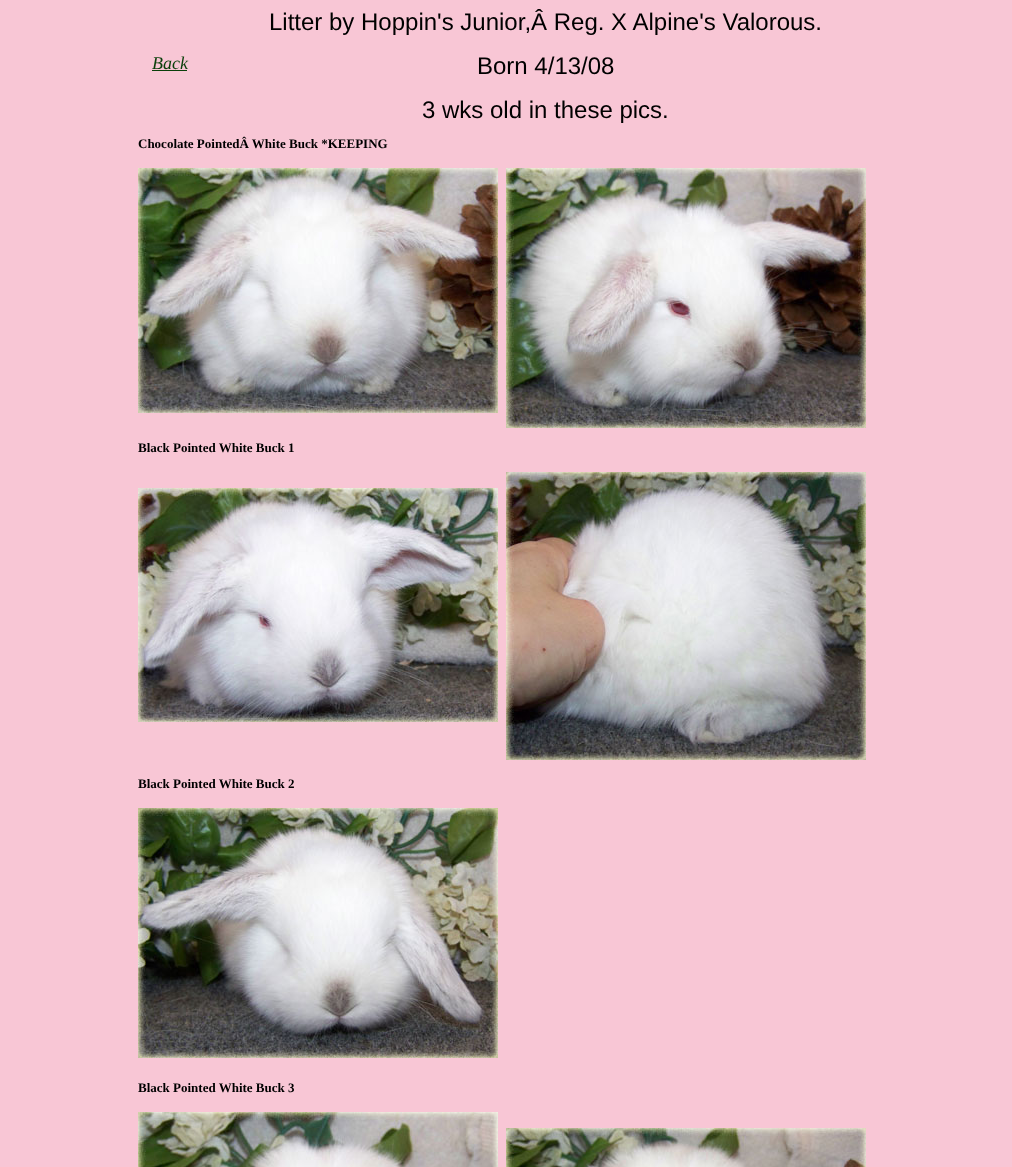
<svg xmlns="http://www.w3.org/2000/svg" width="1012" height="1167">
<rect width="100%" height="100%" fill="#f8c6d5"/>
<text x="152" y="69" style="font-family:Liberation Serif;font-size:18px;font-style:italic;fill:#0a3f0a">Back</text>
<rect x="152" y="70" width="35" height="1" fill="#0a3f0a"/>
<text x="269" y="30" style="font-family:Liberation Sans;font-size:24px;fill:#000">Litter by Hoppin's Junior,Â Reg. X Alpine's Valorous.</text>
<text x="477" y="74" style="font-family:Liberation Sans;font-size:24px;fill:#000">Born 4/13/08</text>
<text x="422" y="118" style="font-family:Liberation Sans;font-size:24px;fill:#000">3 wks old in these pics.</text>
<text x="138" y="148" style="font-family:Liberation Serif;font-size:13px;font-weight:bold;fill:#000">Chocolate PointedÂ White Buck *KEEPING</text>
<image x="138" y="168" width="360" height="245" href="media/1.png"/>
<image x="506" y="168" width="360" height="260" href="media/2.png"/>
<text x="138" y="452" style="font-family:Liberation Serif;font-size:13px;font-weight:bold;fill:#000">Black Pointed White Buck 1</text>
<image x="138" y="488" width="360" height="234" href="media/3.png"/>
<image x="506" y="472" width="360" height="288" href="media/4.png"/>
<text x="138" y="788" style="font-family:Liberation Serif;font-size:13px;font-weight:bold;fill:#000">Black Pointed White Buck 2</text>
<image x="138" y="808" width="360" height="250" href="media/5.png"/>
<text x="138" y="1092" style="font-family:Liberation Serif;font-size:13px;font-weight:bold;fill:#000">Black Pointed White Buck 3</text>
<image x="138" y="1112" width="360" height="55" href="media/6.png"/>
<image x="506" y="1128" width="360" height="39" href="media/7.png"/>
</svg>
